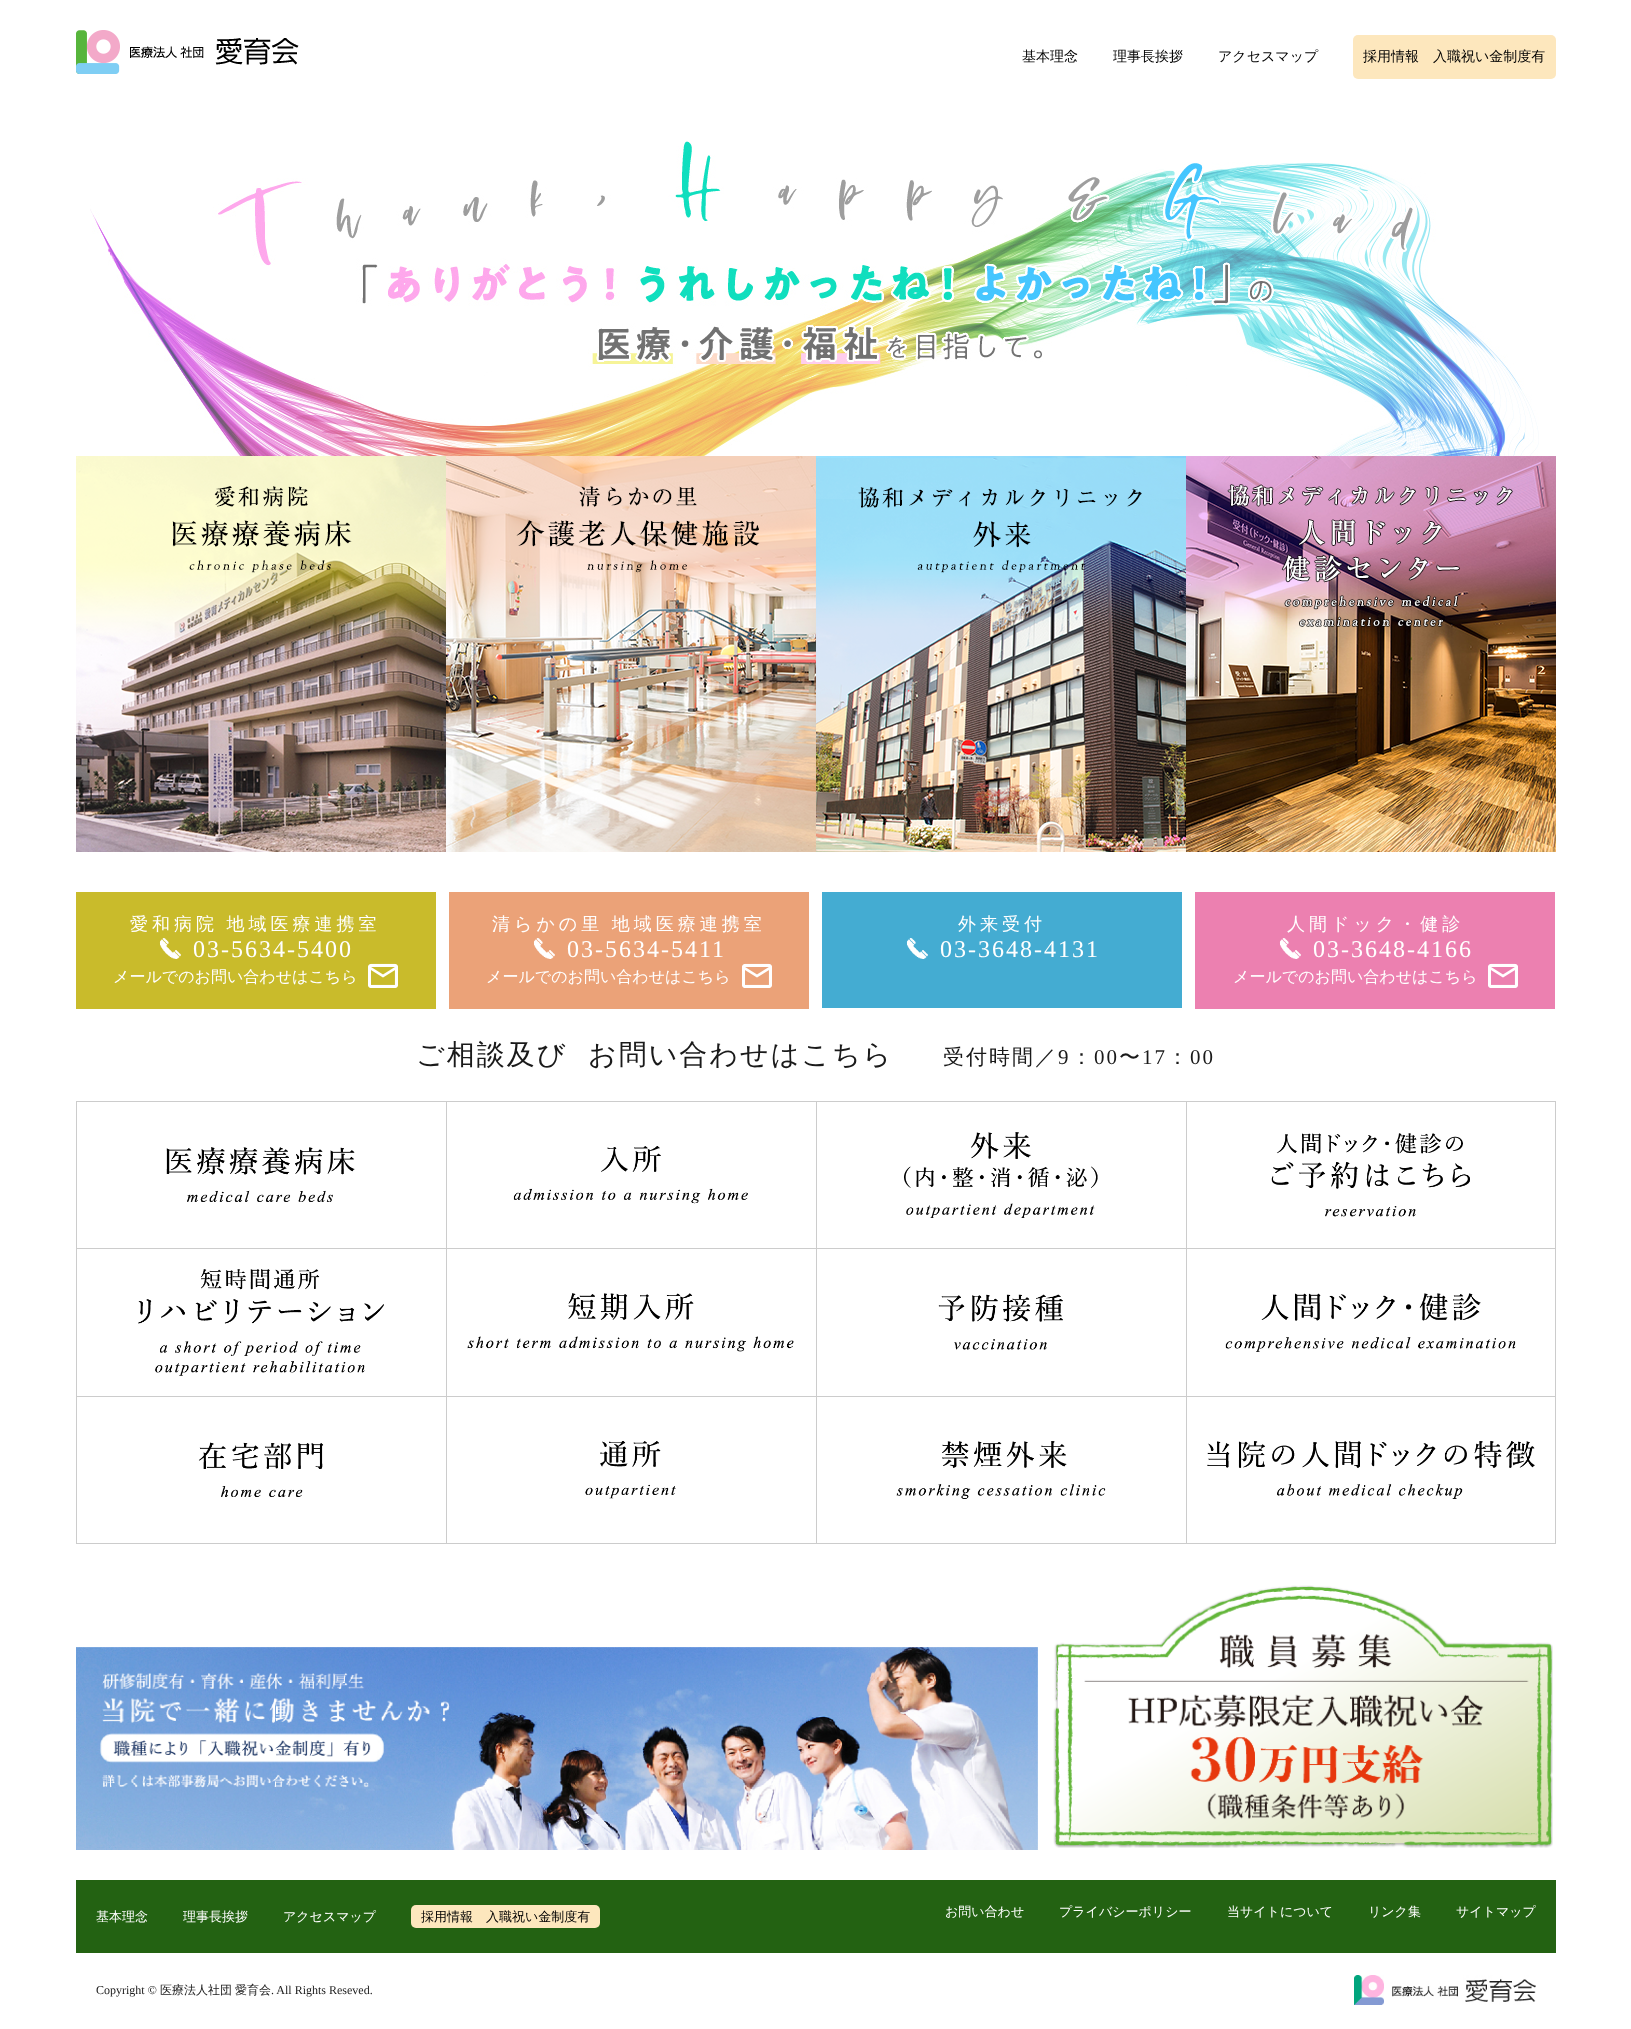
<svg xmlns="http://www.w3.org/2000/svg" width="1631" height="2029">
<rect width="100%" height="100%" fill="#fff"/>
<image x="76" y="30" width="223" height="44" href="media/1.png"/>
<text x="1022" y="61" style="font-family:WenQuanYi Zen Hei;font-size:14px;font-weight:500;fill:#000">基本理念</text>
<text x="1113" y="61" style="font-family:WenQuanYi Zen Hei;font-size:14px;font-weight:500;fill:#000">理事長挨拶</text>
<text x="1218" y="61" style="font-family:WenQuanYi Zen Hei;font-size:14px;font-weight:500;fill:#000">アクセスマップ</text>
<rect x="1353" y="35" width="203" height="44" rx="5" fill="#fde7bd"/>
<text x="1363" y="61" style="font-family:WenQuanYi Zen Hei;font-size:14px;font-weight:500;fill:#000">採用情報　入職祝い金制度有</text>
<image x="90" y="141" width="1449" height="315" href="media/2.png"/>
<image x="76" y="456" width="370" height="396" href="media/3.png"/>
<image x="446" y="456" width="370" height="396" href="media/4.png"/>
<image x="816" y="456" width="370" height="396" href="media/5.png"/>
<image x="1186" y="456" width="370" height="396" href="media/6.png"/>
<rect x="76" y="892" width="360" height="117" fill="#c9bb2b"/>
<text x="130" y="930" word-spacing="-1" style="font-family:WenQuanYi Zen Hei;font-size:18px;font-weight:500;letter-spacing:4px;fill:#fff">愛和病院 地域医療連携室</text>
<image x="159" y="937" width="22" height="22" href="media/7.png"/>
<text x="193" y="957" style="font-family:Liberation Serif;font-size:24px;letter-spacing:2px;fill:#fff">03-5634-5400</text>
<text x="113" y="982" style="font-family:WenQuanYi Zen Hei;font-size:16px;font-weight:500;fill:#fff">メールでのお問い合わせはこちら</text>
<image x="368" y="963" width="30" height="25" href="media/8.png"/>
<rect x="449" y="892" width="360" height="117" fill="#eba278"/>
<text x="492" y="930" word-spacing="-1" style="font-family:WenQuanYi Zen Hei;font-size:18px;font-weight:500;letter-spacing:4px;fill:#fff">清らかの里 地域医療連携室</text>
<image x="533" y="938" width="22" height="21" href="media/9.png"/>
<text x="567" y="957" style="font-family:Liberation Serif;font-size:24px;letter-spacing:2px;fill:#fff">03-5634-5411</text>
<text x="486" y="982" style="font-family:WenQuanYi Zen Hei;font-size:16px;font-weight:500;fill:#fff">メールでのお問い合わせはこちら</text>
<image x="742" y="963" width="30" height="25" href="media/10.png"/>
<rect x="822" y="892" width="360" height="116" fill="#44acd2"/>
<text x="958" y="930" style="font-family:WenQuanYi Zen Hei;font-size:18px;font-weight:500;letter-spacing:4px;fill:#fff">外来受付</text>
<image x="906" y="937" width="22" height="22" href="media/11.png"/>
<text x="940" y="957" style="font-family:Liberation Serif;font-size:24px;letter-spacing:2px;fill:#fff">03-3648-4131</text>
<rect x="1195" y="892" width="360" height="117" fill="#ec80b0"/>
<text x="1287" y="930" style="font-family:WenQuanYi Zen Hei;font-size:18px;font-weight:500;letter-spacing:4px;fill:#fff">人間ドック・健診</text>
<image x="1279" y="938" width="22" height="21" href="media/12.png"/>
<text x="1313" y="957" style="font-family:Liberation Serif;font-size:24px;letter-spacing:2px;fill:#fff">03-3648-4166</text>
<text x="1233" y="982" style="font-family:WenQuanYi Zen Hei;font-size:16px;font-weight:500;fill:#fff">メールでのお問い合わせはこちら</text>
<image x="1488" y="963" width="30" height="25" href="media/13.png"/>
<text x="416" y="1064" style="font-family:WenQuanYi Zen Hei;font-size:28px;font-weight:500;letter-spacing:2px;fill:#1a1a1a">ご相談及び</text>
<text x="588" y="1064" style="font-family:WenQuanYi Zen Hei;font-size:28px;font-weight:500;letter-spacing:2px;fill:#1a1a1a">お問い合わせはこちら</text>
<text x="943" y="1064" style="font-family:WenQuanYi Zen Hei;font-size:21px;font-weight:500;letter-spacing:2px;fill:#1a1a1a">受付時間／</text>
<text x="1058" y="1064" style="font-family:Liberation Serif;font-size:21px;letter-spacing:2px;fill:#1a1a1a">9</text>
<text x="1071" y="1064" style="font-family:WenQuanYi Zen Hei;font-size:21px;font-weight:500;letter-spacing:2px;fill:#1a1a1a">：</text>
<text x="1094" y="1064" style="font-family:Liberation Serif;font-size:21px;letter-spacing:2px;fill:#1a1a1a">00</text>
<text x="1119" y="1064" style="font-family:WenQuanYi Zen Hei;font-size:21px;font-weight:500;letter-spacing:2px;fill:#1a1a1a">〜</text>
<text x="1142" y="1064" style="font-family:Liberation Serif;font-size:21px;letter-spacing:2px;fill:#1a1a1a">17</text>
<text x="1167" y="1064" style="font-family:WenQuanYi Zen Hei;font-size:21px;font-weight:500;letter-spacing:2px;fill:#1a1a1a">：</text>
<text x="1190" y="1064" style="font-family:Liberation Serif;font-size:21px;letter-spacing:2px;fill:#1a1a1a">00</text>
<rect x="76" y="1101" width="1480" height="1" fill="#ccc"/>
<rect x="76" y="1101" width="1" height="147" fill="#ccc"/>
<image x="166" y="1147" width="189" height="55" href="media/14.png"/>
<rect x="76" y="1248" width="1480" height="1" fill="#ccc"/>
<rect x="76" y="1248" width="1" height="148" fill="#ccc"/>
<image x="138" y="1269" width="246" height="107" href="media/15.png"/>
<rect x="76" y="1396" width="1110" height="1" fill="#ccc"/>
<rect x="76" y="1543" width="1110" height="1" fill="#ccc"/>
<rect x="76" y="1396" width="1" height="148" fill="#ccc"/>
<image x="198" y="1442" width="126" height="55" href="media/16.png"/>
<rect x="446" y="1101" width="1" height="443" fill="#ccc"/>
<image x="513" y="1146" width="235" height="58" href="media/17.png"/>
<image x="467" y="1293" width="327" height="59" href="media/18.png"/>
<image x="585" y="1441" width="91" height="58" href="media/19.png"/>
<rect x="816" y="1101" width="1" height="443" fill="#ccc"/>
<image x="904" y="1132" width="194" height="86" href="media/20.png"/>
<image x="938" y="1294" width="125" height="56" href="media/21.png"/>
<image x="896" y="1441" width="210" height="58" href="media/22.png"/>
<rect x="1555" y="1101" width="1" height="295" fill="#ccc"/>
<rect x="1186" y="1101" width="1" height="295" fill="#ccc"/>
<image x="1271" y="1133" width="199" height="84" href="media/23.png"/>
<image x="1225" y="1293" width="291" height="59" href="media/24.png"/>
<rect x="1186.5" y="1396.5" width="369" height="147" fill="none" stroke="#ccc"/>
<image x="1207" y="1441" width="328" height="58" href="media/25.png"/>
<image x="76" y="1647" width="962" height="203" href="media/26.png"/>
<image x="1053" y="1585" width="500" height="263" href="media/27.png"/>
<rect x="76" y="1880" width="1480" height="73" fill="#236212"/>
<text x="96" y="1921" style="font-family:WenQuanYi Zen Hei;font-size:13px;font-weight:500;fill:#fff">基本理念</text>
<text x="183" y="1921" style="font-family:WenQuanYi Zen Hei;font-size:13px;font-weight:500;fill:#fff">理事長挨拶</text>
<text x="283" y="1921" style="font-family:WenQuanYi Zen Hei;font-size:13px;font-weight:500;fill:#fff">アクセスマップ</text>
<rect x="411" y="1905" width="189" height="23" rx="5" fill="#fde7bd"/>
<text x="421" y="1921" style="font-family:WenQuanYi Zen Hei;font-size:13px;font-weight:500;fill:#000">採用情報</text>
<text x="486" y="1921" style="font-family:WenQuanYi Zen Hei;font-size:13px;font-weight:500;fill:#000">入職祝い金制度有</text>
<text x="945" y="1916" style="font-family:WenQuanYi Zen Hei;font-size:13px;font-weight:500;fill:#fff">お問い合わせ</text>
<text x="1059" y="1916" style="font-family:WenQuanYi Zen Hei;font-size:13px;font-weight:500;fill:#fff">プライバシーポリシー</text>
<text x="1227" y="1916" style="font-family:WenQuanYi Zen Hei;font-size:13px;font-weight:500;fill:#fff">当サイトについて</text>
<text x="1368" y="1916" style="font-family:WenQuanYi Zen Hei;font-size:13px;font-weight:500;fill:#fff">リンク集</text>
<text x="1456" y="1916" style="font-family:WenQuanYi Zen Hei;font-size:13px;font-weight:500;fill:#fff">サイトマップ</text>
<text x="96" y="1994" style="font-family:Liberation Serif;font-size:12px;fill:#1a1a1a">Copyright ©</text>
<text x="160" y="1994" style="font-family:WenQuanYi Zen Hei;font-size:12px;font-weight:500;fill:#1a1a1a">医療法人社団</text>
<text x="235" y="1994" style="font-family:WenQuanYi Zen Hei;font-size:12px;font-weight:500;fill:#1a1a1a">愛育会</text>
<text x="271" y="1994" style="font-family:Liberation Serif;font-size:12px;fill:#1a1a1a">. All Rights Reseved.</text>
<image x="1354" y="1975" width="182" height="30" href="media/28.png"/>
</svg>
